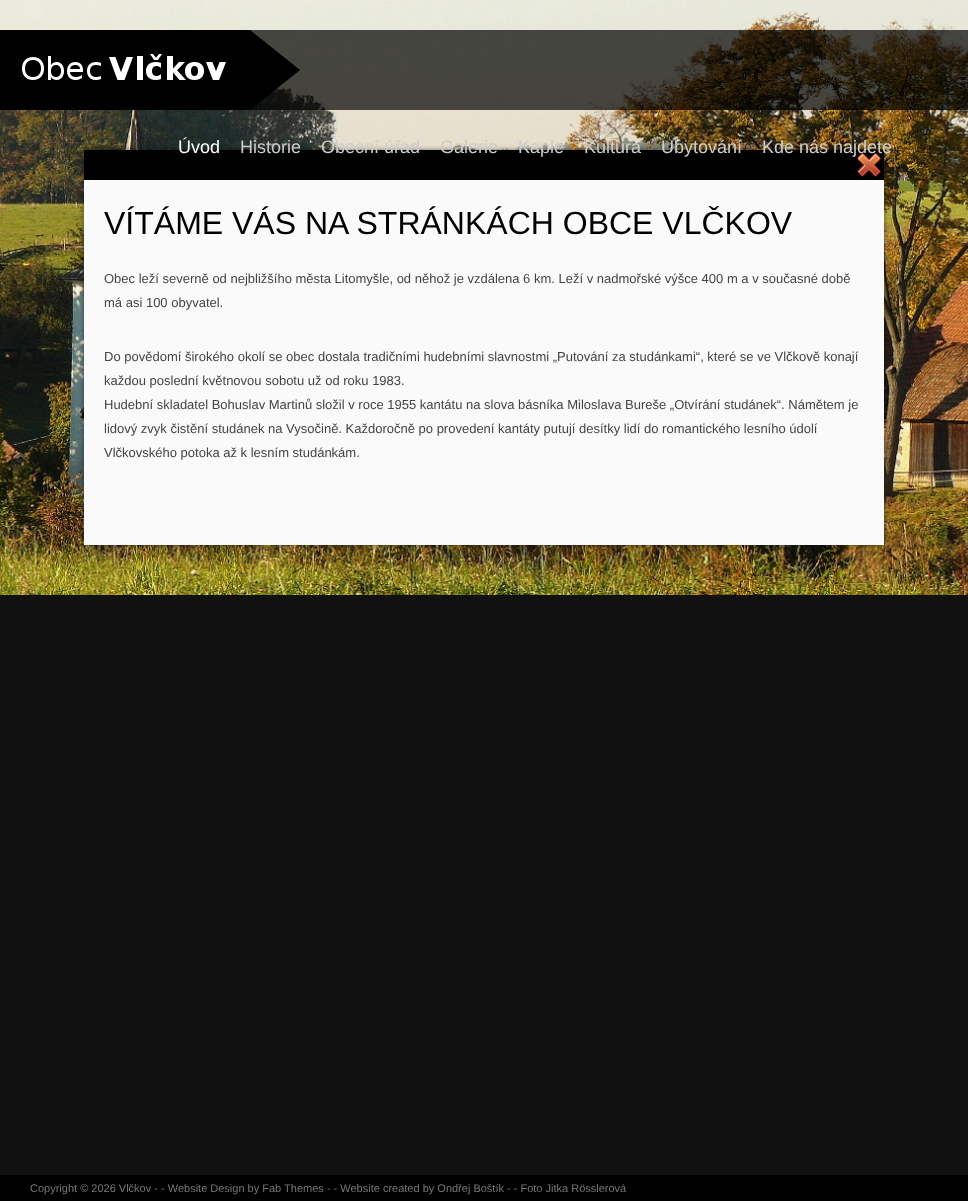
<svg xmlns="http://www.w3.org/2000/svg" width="968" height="1201">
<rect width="100%" height="100%" fill="#111"/>
<image x="0" y="0" width="968" height="595" href="media/1.png"/>
<rect x="250" y="30" width="718" height="80" fill="#000000b3"/>
<image x="0" y="30" width="300" height="80" href="media/2.png"/>
<image x="22" y="54" width="204" height="26" href="media/3.png"/>
<rect x="84" y="150" width="800" height="395" fill="#00000080" filter="blur(2.5px)"/>
<rect x="84" y="150" width="800" height="30" fill="#000"/>
<text x="178" y="153" style="font-family:Liberation Sans;font-size:18px;fill:#fff">Úvod</text>
<text x="240" y="153" style="font-family:Liberation Sans;font-size:18px;fill:#ccc">Historie</text>
<text x="321" y="153" style="font-family:Liberation Sans;font-size:18px;fill:#ccc">Obecní úřad</text>
<text x="440" y="153" style="font-family:Liberation Sans;font-size:18px;fill:#ccc">Galerie</text>
<text x="518" y="153" style="font-family:Liberation Sans;font-size:18px;fill:#ccc">Kaple</text>
<text x="584" y="153" style="font-family:Liberation Sans;font-size:18px;fill:#ccc">Kultura</text>
<text x="661" y="153" style="font-family:Liberation Sans;font-size:18px;fill:#ccc">Ubytování</text>
<image x="857" y="153" width="24" height="24" href="media/4.png"/>
<text x="762" y="153" style="font-family:Liberation Sans;font-size:18px;fill:#ccc">Kde nás najdete</text>
<rect x="84" y="180" width="800" height="365" fill="#fafafa"/>
<text x="104" y="234" style="font-family:Liberation Sans;font-size:32px;fill:#000">VÍTÁME VÁS NA STRÁNKÁCH OBCE VLČKOV</text>
<text x="104" y="283" style="font-family:Liberation Sans;font-size:13px;fill:#444">Obec leží severně od nejbližšího města Litomyšle, od něhož je vzdálena 6 km. Leží v nadmořské výšce 400 m a v současné době</text>
<text x="104" y="307" style="font-family:Liberation Sans;font-size:13px;fill:#444">má asi 100 obyvatel.</text>
<text x="104" y="361" style="font-family:Liberation Sans;font-size:13px;fill:#444">Do povědomí širokého okolí se obec dostala tradičními hudebními slavnostmi „Putování za studánkami“, které se ve Vlčkově konají</text>
<text x="104" y="385" style="font-family:Liberation Sans;font-size:13px;fill:#444">každou poslední květnovou sobotu už od roku 1983.</text>
<text x="104" y="409" style="font-family:Liberation Sans;font-size:13px;fill:#444">Hudební skladatel Bohuslav Martinů složil v roce 1955 kantátu na slova básníka Miloslava Bureše „Otvírání studánek“. Námětem je</text>
<text x="104" y="433" style="font-family:Liberation Sans;font-size:13px;fill:#444">lidový zvyk čistění studánek na Vysočině. Každoročně po provedení kantáty putují desítky lidí do romantického lesního údolí</text>
<text x="104" y="457" style="font-family:Liberation Sans;font-size:13px;fill:#444">Vlčkovského potoka až k lesním studánkám.</text>
<rect y="1175" width="968" height="26" fill="#000"/>
<text x="30" y="1192" style="font-family:Liberation Sans;font-size:11px;fill:#777">Copyright © 2026 Vlčkov - - Website Design by Fab Themes - - Website created by Ondřej Boštík - - Foto Jitka Rösslerová</text>
</svg>
